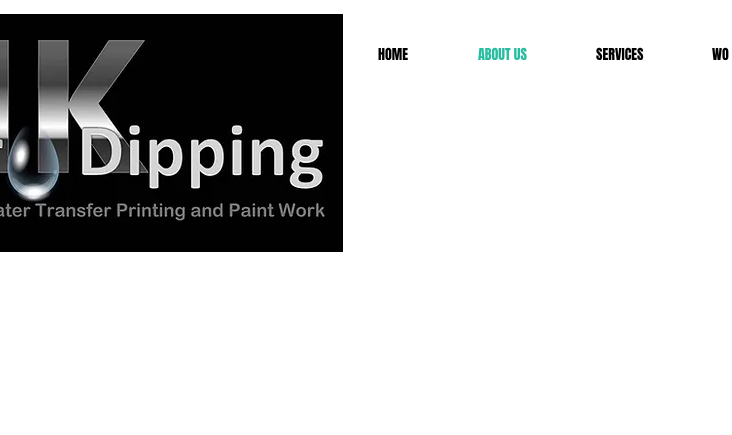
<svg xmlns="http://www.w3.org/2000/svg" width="732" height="435">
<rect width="100%" height="100%" fill="#fff"/>
<image x="0" y="14" width="343" height="238" href="media/1.png"/>
<text x="378" y="60" style="font-family:Anton;font-size:14px;fill:#000">HOME</text>
<text x="478" y="60" style="font-family:Anton;font-size:14px;fill:#26bda1">ABOUT US</text>
<text x="596" y="60" style="font-family:Anton;font-size:14px;fill:#000">SERVICES</text>
<text x="712" y="60" style="font-family:Anton;font-size:14px;fill:#000">WO</text>
</svg>
